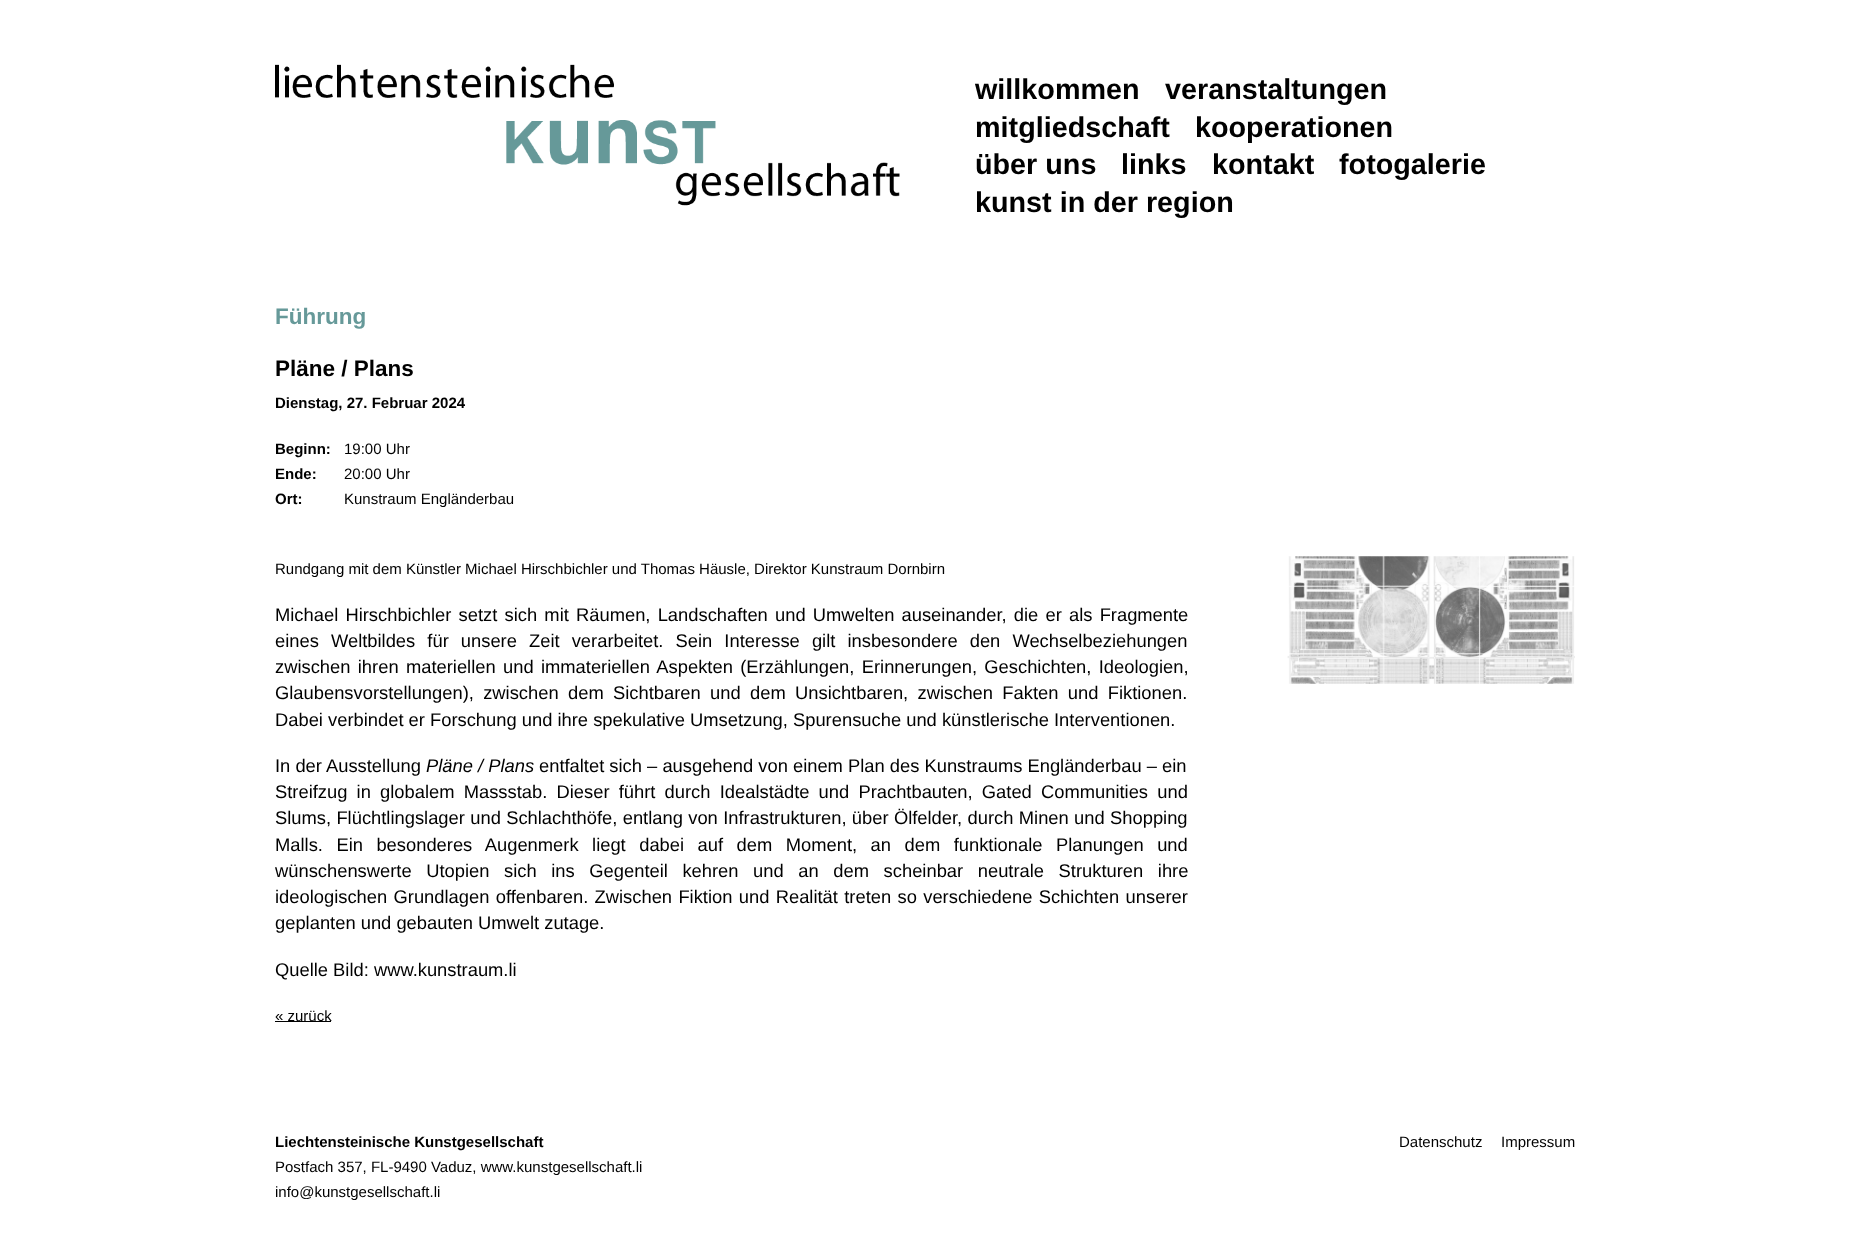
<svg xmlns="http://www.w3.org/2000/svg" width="1850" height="1235">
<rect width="100%" height="100%" fill="#fff"/>
<image x="275" y="64" width="625" height="142" href="media/1.png"/>
<text x="975" y="99" style="font-family:Liberation Sans;font-size:28.75px;font-weight:bold;fill:#000">willkommen</text>
<text x="1165" y="99" style="font-family:Liberation Sans;font-size:28.75px;font-weight:bold;fill:#000">veranstaltungen</text>
<text x="975" y="137" style="font-family:Liberation Sans;font-size:28.75px;font-weight:bold;fill:#000">mitgliedschaft</text>
<text x="1195" y="137" style="font-family:Liberation Sans;font-size:28.75px;font-weight:bold;fill:#000">kooperationen</text>
<text x="975" y="174" style="font-family:Liberation Sans;font-size:28.75px;font-weight:bold;fill:#000">über uns</text>
<text x="1121" y="174" style="font-family:Liberation Sans;font-size:28.75px;font-weight:bold;fill:#000">links</text>
<text x="1212" y="174" style="font-family:Liberation Sans;font-size:28.75px;font-weight:bold;fill:#000">kontakt</text>
<text x="1339" y="174" style="font-family:Liberation Sans;font-size:28.75px;font-weight:bold;fill:#000">fotogalerie</text>
<text x="975" y="212" style="font-family:Liberation Sans;font-size:28.75px;font-weight:bold;fill:#000">kunst in der region</text>
<text x="275" y="324" style="font-family:Liberation Sans;font-size:22.5px;font-weight:bold;fill:#699">Führung</text>
<text x="275" y="376" style="font-family:Liberation Sans;font-size:22.5px;font-weight:bold;fill:#000">Pläne / Plans</text>
<text x="275" y="408" style="font-family:Liberation Sans;font-size:15px;font-weight:bold;fill:#000">Dienstag, 27. Februar 2024</text>
<text x="275" y="454" style="font-family:Liberation Sans;font-size:15px;font-weight:bold;fill:#000">Beginn:</text>
<text x="344" y="454" style="font-family:Liberation Sans;font-size:15px;fill:#000">19:00 Uhr</text>
<text x="275" y="479" style="font-family:Liberation Sans;font-size:15px;font-weight:bold;fill:#000">Ende:</text>
<text x="344" y="479" style="font-family:Liberation Sans;font-size:15px;fill:#000">20:00 Uhr</text>
<text x="275" y="504" style="font-family:Liberation Sans;font-size:15px;font-weight:bold;fill:#000">Ort:</text>
<text x="344" y="504" style="font-family:Liberation Sans;font-size:15px;fill:#000">Kunstraum Engländerbau</text>
<text x="275" y="574" style="font-family:Liberation Sans;font-size:15px;fill:#000">Rundgang mit dem Künstler Michael Hirschbichler und Thomas Häusle, Direktor Kunstraum Dornbirn</text>
<text x="275" y="621" word-spacing="2.1" style="font-family:Liberation Sans;font-size:18.35px;fill:#000">Michael Hirschbichler setzt sich mit Räumen, Landschaften und Umwelten auseinander, die er als Fragmente</text>
<text x="275" y="647" word-spacing="7" style="font-family:Liberation Sans;font-size:18.35px;fill:#000">eines Weltbildes für unsere Zeit verarbeitet. Sein Interesse gilt insbesondere den Wechselbeziehungen</text>
<text x="275" y="673" word-spacing="2.25" style="font-family:Liberation Sans;font-size:18.35px;fill:#000">zwischen ihren materiellen und immateriellen Aspekten (Erzählungen, Erinnerungen, Geschichten, Ideologien,</text>
<text x="275" y="699" word-spacing="4.25" style="font-family:Liberation Sans;font-size:18.35px;fill:#000">Glaubensvorstellungen), zwischen dem Sichtbaren und dem Unsichtbaren, zwischen Fakten und Fiktionen.</text>
<text x="275" y="726" style="font-family:Liberation Sans;font-size:18.35px;fill:#000">Dabei verbindet er Forschung und ihre spekulative Umsetzung, Spurensuche und künstlerische Interventionen.</text>
<text x="275" y="772" style="font-family:Liberation Sans;font-size:18.35px;fill:#000">In der Ausstellung</text>
<text x="426" y="772" style="font-family:Liberation Sans;font-size:18.35px;font-style:italic;fill:#000">Pläne / Plans</text>
<text x="539" y="772" style="font-family:Liberation Sans;font-size:18.35px;fill:#000">entfaltet sich – ausgehend von einem Plan des Kunstraums Engländerbau – ein</text>
<text x="275" y="798" word-spacing="4.1" style="font-family:Liberation Sans;font-size:18.35px;fill:#000">Streifzug in globalem Massstab. Dieser führt durch Idealstädte und Prachtbauten, Gated Communities und</text>
<text x="275" y="824" word-spacing="0.25" style="font-family:Liberation Sans;font-size:18.35px;fill:#000">Slums, Flüchtlingslager und Schlachthöfe, entlang von Infrastrukturen, über Ölfelder, durch Minen und Shopping</text>
<text x="275" y="851" word-spacing="8.4" style="font-family:Liberation Sans;font-size:18.35px;fill:#000">Malls. Ein besonderes Augenmerk liegt dabei auf dem Moment, an dem funktionale Planungen und</text>
<text x="275" y="877" word-spacing="9.5" style="font-family:Liberation Sans;font-size:18.35px;fill:#000">wünschenswerte Utopien sich ins Gegenteil kehren und an dem scheinbar neutrale Strukturen ihre</text>
<text x="275" y="903" word-spacing="1.25" style="font-family:Liberation Sans;font-size:18.35px;fill:#000">ideologischen Grundlagen offenbaren. Zwischen Fiktion und Realität treten so verschiedene Schichten unserer</text>
<text x="275" y="929" style="font-family:Liberation Sans;font-size:18.35px;fill:#000">geplanten und gebauten Umwelt zutage.</text>
<text x="275" y="976" style="font-family:Liberation Sans;font-size:18.35px;fill:#000">Quelle Bild: www.kunstraum.li</text>
<rect x="275" y="1021" width="56" height="1" fill="#000"/>
<text x="275" y="1021" style="font-family:Liberation Sans;font-size:15px;fill:#000">« zurück</text>
<image x="1287" y="556" width="288" height="128" href="media/2.png"/>
<text x="275" y="1147" style="font-family:Liberation Sans;font-size:15px;font-weight:bold;fill:#000">Liechtensteinische Kunstgesellschaft</text>
<text x="275" y="1172" style="font-family:Liberation Sans;font-size:15px;fill:#000">Postfach 357, FL-9490 Vaduz, www.kunstgesellschaft.li</text>
<text x="275" y="1197" style="font-family:Liberation Sans;font-size:15px;fill:#000">info@kunstgesellschaft.li</text>
<text x="1399" y="1147" style="font-family:Liberation Sans;font-size:15px;fill:#000">Datenschutz</text>
<text x="1501" y="1147" style="font-family:Liberation Sans;font-size:15px;fill:#000">Impressum</text>
</svg>
